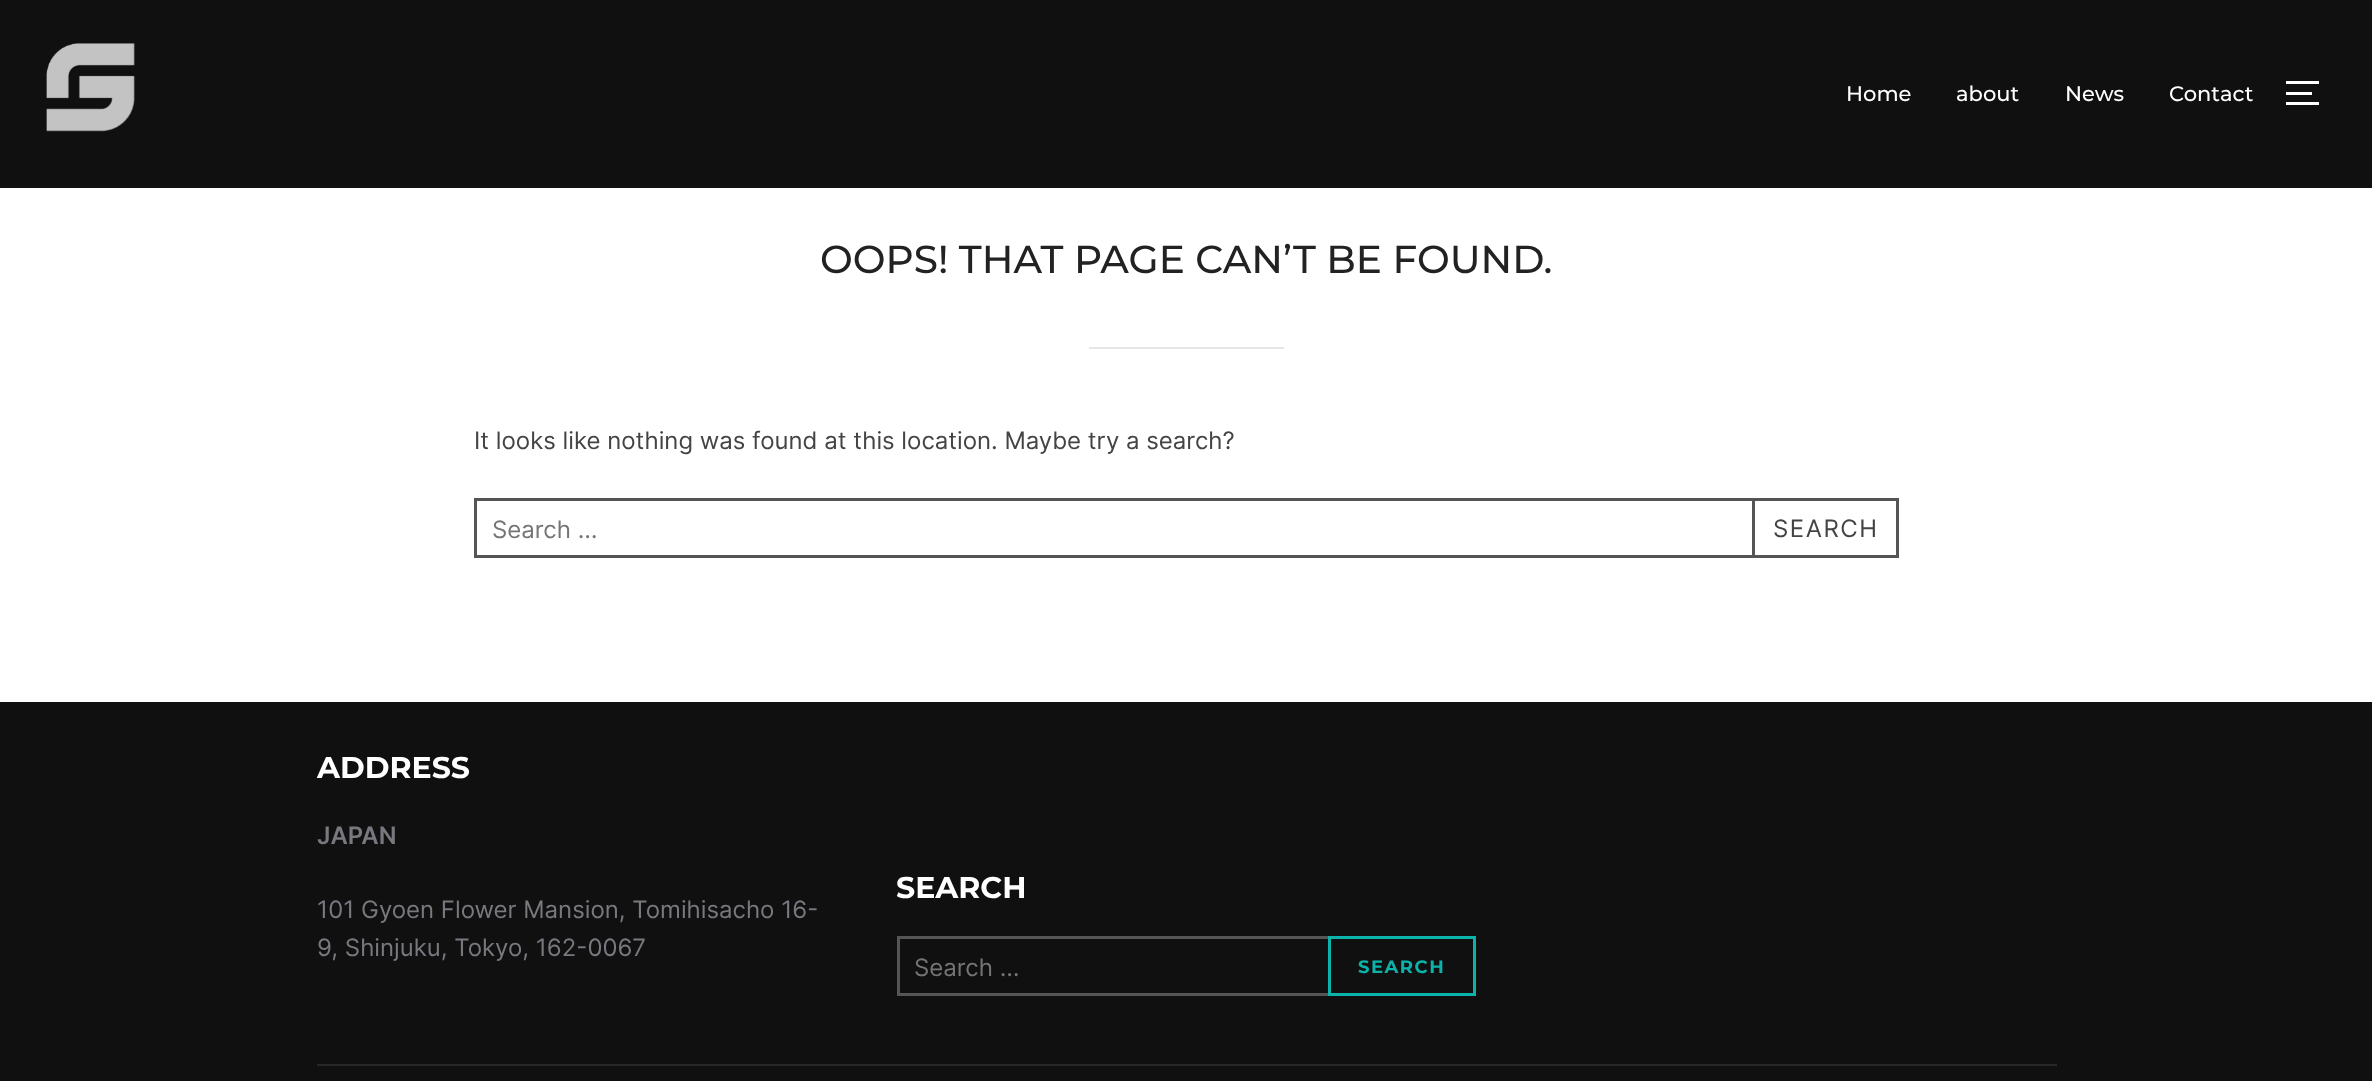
<svg xmlns="http://www.w3.org/2000/svg" width="2372" height="1081">
<rect width="100%" height="100%" fill="#fff"/>
<rect width="2372" height="188" fill="#101010"/>
<image x="46" y="43" width="89" height="89" href="media/1.png"/>
<text x="1846" y="101" style="font-family:Montserrat;font-size:21px;font-weight:500;fill:#fff">Home</text>
<text x="1956" y="101" style="font-family:Montserrat;font-size:21px;font-weight:500;fill:#fff">about</text>
<text x="2065" y="101" style="font-family:Montserrat;font-size:21px;font-weight:500;fill:#fff">News</text>
<text x="2169" y="101" style="font-family:Montserrat;font-size:21px;font-weight:500;fill:#fff">Contact</text>
<rect x="2286" y="81" width="33" height="3" fill="#fff"/>
<rect x="2286" y="92" width="26" height="3" fill="#fff"/>
<rect x="2286" y="102" width="33" height="3" fill="#fff"/>
<text x="820" y="273" style="font-family:Montserrat;font-size:39px;font-weight:500;fill:#222">OOPS! THAT PAGE CAN’T BE FOUND.</text>
<rect x="1089" y="347" width="195" height="2" fill="#e6e6e6"/>
<text x="474" y="449" style="font-family:Inter;font-size:24px;fill:#444">It looks like nothing was found at this location. Maybe try a search?</text>
<rect x="475.5" y="499.5" width="1422" height="57" fill="none" stroke="#565555" stroke-width="3"/>
<text x="492" y="538" style="font-family:Inter;font-size:24px;fill:#757575">Search …</text>
<rect x="1753.5" y="499.5" width="144" height="57" fill="none" stroke="#565555" stroke-width="3"/>
<text x="1773" y="537" style="font-family:Inter;font-size:24px;letter-spacing:1.5px;fill:#444">SEARCH</text>
<rect y="702" width="2372" height="379" fill="#101010"/>
<text x="317" y="778" style="font-family:Montserrat;font-size:30px;font-weight:bold;fill:#fff">ADDRESS</text>
<text x="317" y="844" style="font-family:Inter;font-size:24px;font-weight:600;fill:#78787f">JAPAN</text>
<text x="317" y="918" style="font-family:Inter;font-size:24px;fill:#78787f">101 Gyoen Flower Mansion, Tomihisacho 16-</text>
<text x="317" y="956" style="font-family:Inter;font-size:24px;fill:#78787f">9, Shinjuku, Tokyo, 162-0067</text>
<text x="896" y="898" style="font-family:Montserrat;font-size:30px;font-weight:bold;fill:#fff">SEARCH</text>
<rect x="898.5" y="937.5" width="576" height="57" fill="none" stroke="#565555" stroke-width="3"/>
<text x="914" y="976" style="font-family:Inter;font-size:24px;fill:#757575">Search …</text>
<rect x="1329.5" y="937.5" width="145" height="57" fill="none" stroke="#0bb4aa" stroke-width="3"/>
<text x="1358" y="973" style="font-family:Montserrat;font-size:18px;font-weight:bold;letter-spacing:1.5px;fill:#0bb4aa">SEARCH</text>
<rect x="317" y="1064" width="1740" height="2" fill="#282828"/>
</svg>
